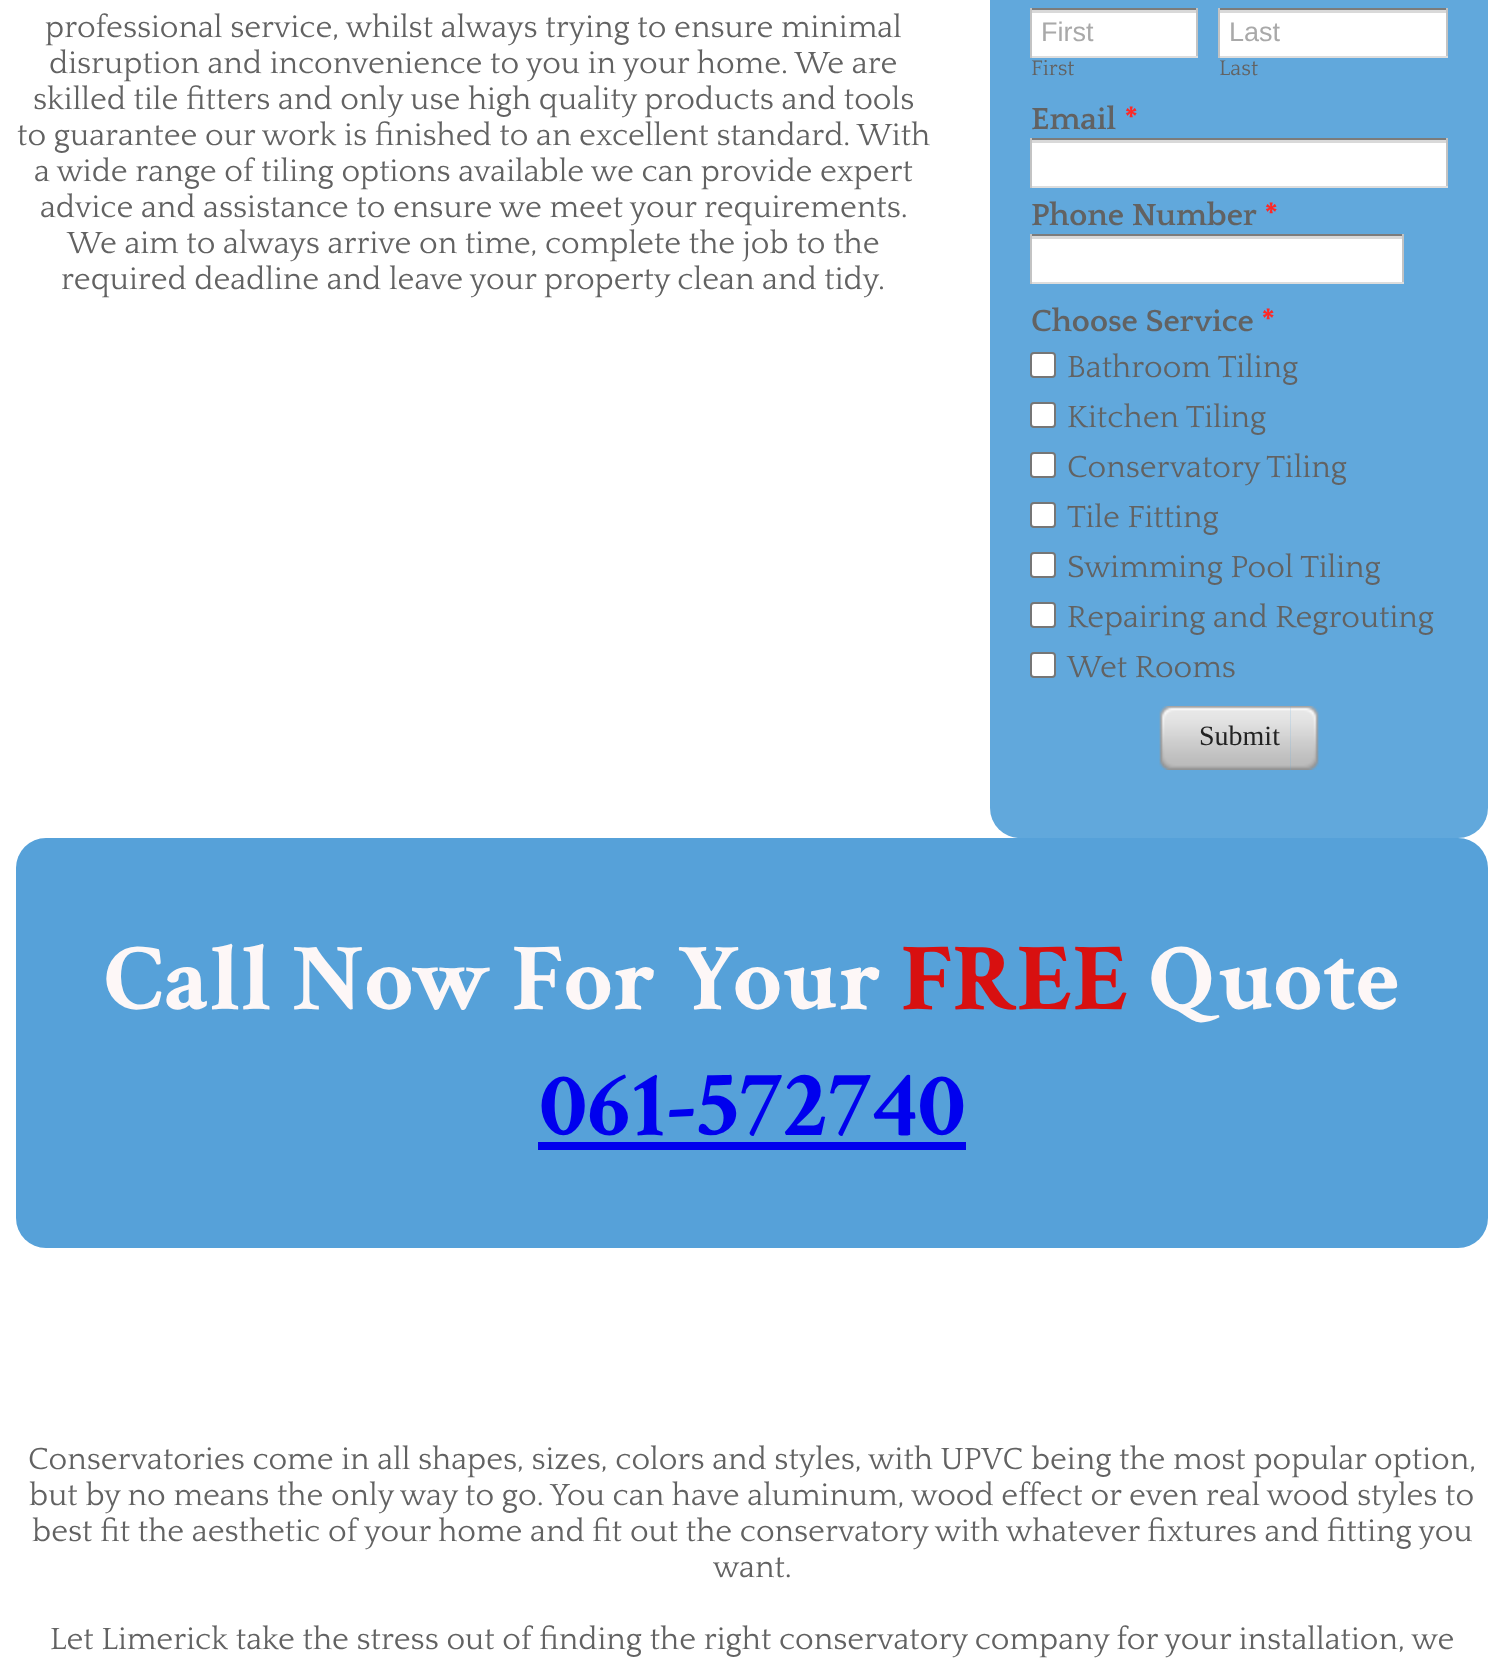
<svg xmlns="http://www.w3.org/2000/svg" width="1503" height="1661">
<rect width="100%" height="100%" fill="#fff"/>
<text x="45" y="37" style="font-family:Quattrocento;font-size:32px;fill:#626262">professional service, whilst always trying to ensure minimal</text>
<text x="49" y="73" style="font-family:Quattrocento;font-size:32px;fill:#626262">disruption and inconvenience to you in your home. We are</text>
<text x="33" y="109" style="font-family:Quattrocento;font-size:32px;fill:#626262">skilled tile fitters and only use high quality products and tools</text>
<text x="17" y="145" style="font-family:Quattrocento;font-size:32px;fill:#626262">to guarantee our work is finished to an excellent standard. With</text>
<text x="34" y="181" style="font-family:Quattrocento;font-size:32px;fill:#626262">a wide range of tiling options available we can provide expert</text>
<text x="40" y="217" style="font-family:Quattrocento;font-size:32px;fill:#626262">advice and assistance to ensure we meet your requirements.</text>
<text x="67" y="253" style="font-family:Quattrocento;font-size:32px;fill:#626262">We aim to always arrive on time, complete the job to the</text>
<text x="61" y="289" style="font-family:Quattrocento;font-size:32px;fill:#626262">required deadline and leave your property clean and tidy.</text>
<rect x="990" y="-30" width="498" height="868" rx="30" fill="#61a8dc"/>
<rect x="1032" y="13" width="164" height="43" fill="#fff"/>
<rect x="1030" y="10" width="168" height="3" fill="#d9d9d9"/>
<rect x="1030" y="8" width="168" height="2" fill="#7c7c7c"/>
<rect x="1196" y="8" width="2" height="50" fill="#c3c3c3"/>
<rect x="1030" y="56" width="168" height="2" fill="#ddd"/>
<rect x="1030" y="8" width="2" height="50" fill="#c3c3c3"/>
<text x="1041" y="41" style="font-family:Liberation Sans;font-size:27px;fill:#a9a9a9">First</text>
<text x="1031" y="75" style="font-family:Quattrocento;font-size:22px;fill:#626262">First</text>
<rect x="1220" y="13" width="226" height="43" fill="#fff"/>
<rect x="1218" y="10" width="230" height="3" fill="#d9d9d9"/>
<rect x="1218" y="8" width="230" height="2" fill="#7c7c7c"/>
<rect x="1446" y="8" width="2" height="50" fill="#c3c3c3"/>
<rect x="1218" y="56" width="230" height="2" fill="#ddd"/>
<rect x="1218" y="8" width="2" height="50" fill="#c3c3c3"/>
<text x="1229" y="41" style="font-family:Liberation Sans;font-size:27px;fill:#a9a9a9">Last</text>
<text x="1219" y="75" style="font-family:Quattrocento;font-size:22px;fill:#626262">Last</text>
<text x="1031" y="129" style="font-family:Quattrocento;font-size:32px;font-weight:bold;fill:#626262">Email</text>
<text x="1124" y="129" style="font-family:Quattrocento;font-size:32px;font-weight:bold;fill:#ff2825">*</text>
<rect x="1032" y="143" width="414" height="43" fill="#fff"/>
<rect x="1030" y="140" width="418" height="3" fill="#d9d9d9"/>
<rect x="1030" y="138" width="418" height="2" fill="#7c7c7c"/>
<rect x="1446" y="138" width="2" height="50" fill="#c3c3c3"/>
<rect x="1030" y="186" width="418" height="2" fill="#ddd"/>
<rect x="1030" y="138" width="2" height="50" fill="#c3c3c3"/>
<text x="1031" y="225" style="font-family:Quattrocento;font-size:32px;font-weight:bold;fill:#626262">Phone Number</text>
<text x="1264" y="225" style="font-family:Quattrocento;font-size:32px;font-weight:bold;fill:#ff2825">*</text>
<rect x="1032" y="239" width="370" height="43" fill="#fff"/>
<rect x="1030" y="236" width="374" height="3" fill="#d9d9d9"/>
<rect x="1030" y="234" width="374" height="2" fill="#7c7c7c"/>
<rect x="1402" y="234" width="2" height="50" fill="#c3c3c3"/>
<rect x="1030" y="282" width="374" height="2" fill="#ddd"/>
<rect x="1030" y="234" width="2" height="50" fill="#c3c3c3"/>
<text x="1031" y="331" style="font-family:Quattrocento;font-size:32px;font-weight:bold;fill:#626262">Choose Service</text>
<text x="1261" y="331" style="font-family:Quattrocento;font-size:32px;font-weight:bold;fill:#ff2825">*</text>
<rect x="1031" y="353" width="24" height="24" rx="3" fill="#fff" stroke="#767676" stroke-width="2"/>
<text x="1067" y="377" style="font-family:Quattrocento;font-size:32px;fill:#626262">Bathroom Tiling</text>
<rect x="1031" y="403" width="24" height="24" rx="3" fill="#fff" stroke="#767676" stroke-width="2"/>
<text x="1067" y="427" style="font-family:Quattrocento;font-size:32px;fill:#626262">Kitchen Tiling</text>
<rect x="1031" y="453" width="24" height="24" rx="3" fill="#fff" stroke="#767676" stroke-width="2"/>
<text x="1067" y="477" style="font-family:Quattrocento;font-size:32px;fill:#626262">Conservatory Tiling</text>
<rect x="1031" y="503" width="24" height="24" rx="3" fill="#fff" stroke="#767676" stroke-width="2"/>
<text x="1067" y="527" style="font-family:Quattrocento;font-size:32px;fill:#626262">Tile Fitting</text>
<rect x="1031" y="553" width="24" height="24" rx="3" fill="#fff" stroke="#767676" stroke-width="2"/>
<text x="1067" y="577" style="font-family:Quattrocento;font-size:32px;fill:#626262">Swimming Pool Tiling</text>
<rect x="1031" y="603" width="24" height="24" rx="3" fill="#fff" stroke="#767676" stroke-width="2"/>
<text x="1067" y="627" style="font-family:Quattrocento;font-size:32px;fill:#626262">Repairing and Regrouting</text>
<rect x="1031" y="653" width="24" height="24" rx="3" fill="#fff" stroke="#767676" stroke-width="2"/>
<text x="1067" y="677" style="font-family:Quattrocento;font-size:32px;fill:#626262">Wet Rooms</text>
<image x="1290" y="706" width="29" height="64" href="media/1.png"/>
<image x="1159" y="706" width="131" height="64" href="media/2.png"/>
<text x="1199" y="745" style="font-family:Liberation Serif;font-size:28px;fill:#222">Submit</text>
<rect x="16" y="838" width="1472" height="410" rx="30" fill="#56a1d9"/>
<text x="104" y="1009" style="font-family:Crimson Text;font-size:96px;font-weight:bold;fill:#fdf7f7">Call Now For Your</text>
<text x="901" y="1009" style="font-family:Crimson Text;font-size:96px;font-weight:bold;fill:#d81010">FREE</text>
<text x="1149" y="1009" style="font-family:Crimson Text;font-size:96px;font-weight:bold;fill:#fdf7f7">Quote</text>
<text x="539" y="1135" style="font-family:Crimson Text;font-size:96px;font-weight:bold;fill:#00e">061-572740</text>
<rect x="538" y="1142" width="428" height="8" fill="#00e"/>
<text x="28" y="1469" style="font-family:Quattrocento;font-size:32px;fill:#626262">Conservatories come in all shapes, sizes, colors and styles, with UPVC being the most popular option,</text>
<text x="29" y="1505" style="font-family:Quattrocento;font-size:32px;fill:#626262">but by no means the only way to go. You can have aluminum, wood effect or even real wood styles to</text>
<text x="32" y="1541" style="font-family:Quattrocento;font-size:32px;fill:#626262">best fit the aesthetic of your home and fit out the conservatory with whatever fixtures and fitting you</text>
<text x="713" y="1577" style="font-family:Quattrocento;font-size:32px;fill:#626262">want.</text>
<text x="50" y="1649" style="font-family:Quattrocento;font-size:32px;fill:#626262">Let Limerick take the stress out of finding the right conservatory company for your installation, we</text>
</svg>
